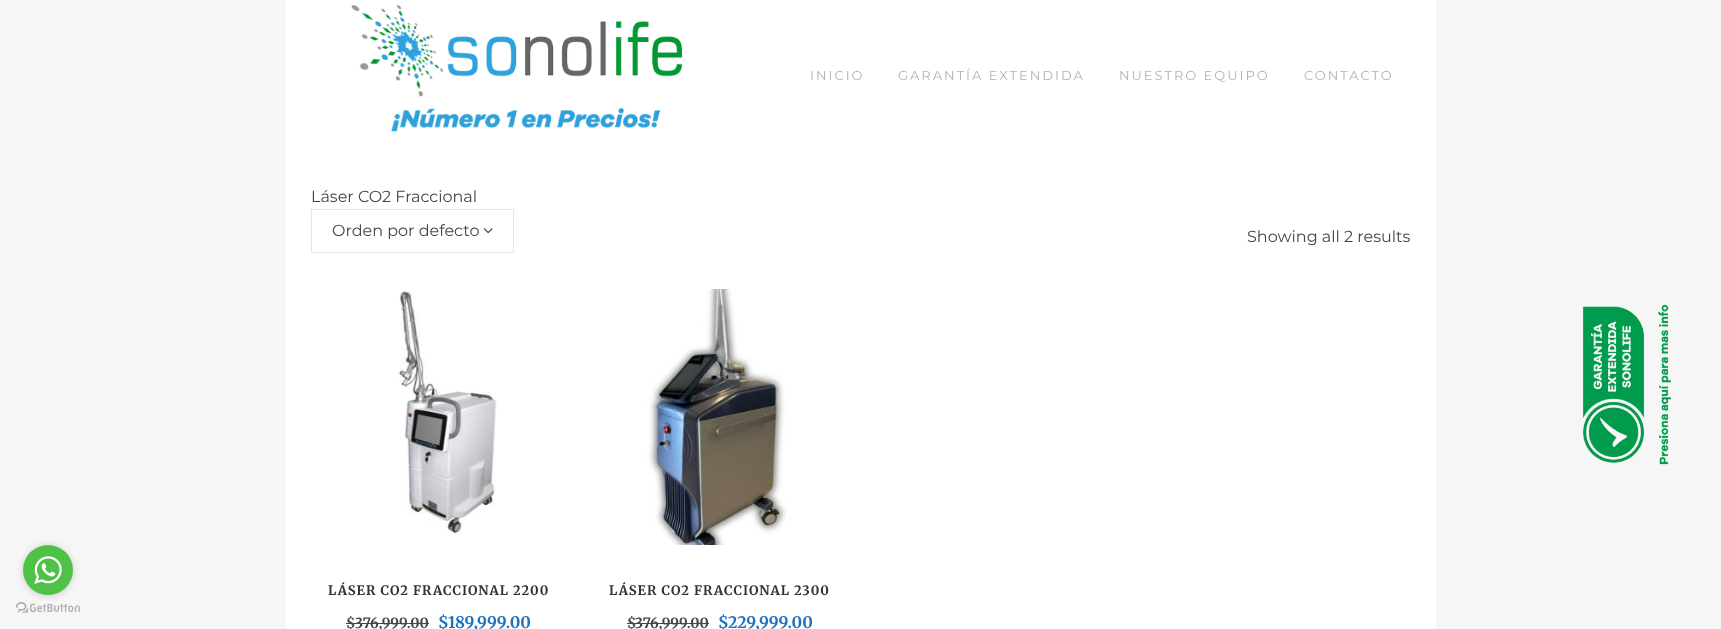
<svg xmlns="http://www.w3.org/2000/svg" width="1721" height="629">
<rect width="100%" height="100%" fill="#f6f6f6"/>
<image x="16" y="602" width="64" height="11" href="media/2.png"/>
<rect x="23" y="546" width="50" height="50" rx="25" fill="#88888866" filter="blur(3.5px)"/>
<circle cx="48" cy="570" r="25" fill="#4dc247"/>
<image x="34" y="556" width="28" height="28" href="media/1.png"/>
<rect x="286" width="1150" height="629" fill="#fff"/>
<image x="351" y="5" width="332" height="127" href="media/3.png"/>
<text x="810" y="80" style="font-family:Montserrat;font-size:13px;letter-spacing:2px;fill:#b2b2b1">INICIO</text>
<text x="898" y="80" style="font-family:Montserrat;font-size:13px;letter-spacing:2px;fill:#b2b2b1">GARANTÍA EXTENDIDA</text>
<text x="1119" y="80" style="font-family:Montserrat;font-size:13px;letter-spacing:2px;fill:#b2b2b1">NUESTRO EQUIPO</text>
<text x="1304" y="80" style="font-family:Montserrat;font-size:13px;letter-spacing:2px;fill:#b2b2b1">CONTACTO</text>
<text x="311" y="202" style="font-family:Montserrat;font-size:16px;fill:#474747">Láser CO2 Fraccional</text>
<rect x="311.5" y="209.5" width="202" height="43" fill="none" stroke="#e6e6e6"/>
<text x="332" y="236" style="font-family:Montserrat;font-size:16px;fill:#474747">Orden por defecto</text>
<image x="483" y="228" width="10" height="6" href="media/4.png"/>
<text x="1247" y="242" style="font-family:Montserrat;font-size:16px;fill:#474747">Showing all 2 results</text>
<image x="398" y="290" width="99" height="245" href="media/5.png"/>
<text x="328" y="595" style="font-family:Merriweather;font-size:13px;font-weight:bold;letter-spacing:1px;fill:#3b302c">LÁSER CO2 FRACCIONAL 2200</text>
<text x="346" y="628" style="font-family:Merriweather;font-size:14px;font-weight:bold;fill:#474747">$</text>
<text x="355" y="628" style="font-family:Merriweather;font-size:14px;font-weight:bold;fill:#474747">376,999.00</text>
<rect x="346" y="623" width="9" height="1" fill="#474747"/>
<rect x="355" y="623" width="74" height="1" fill="#474747"/>
<text x="438" y="628" style="font-family:Merriweather;font-size:16px;font-weight:bold;fill:#1e73be">$</text>
<text x="448" y="628" style="font-family:Merriweather;font-size:16px;font-weight:bold;fill:#1e73be">189,999.00</text>
<image x="647" y="289" width="140" height="256" href="media/6.png"/>
<text x="609" y="595" style="font-family:Merriweather;font-size:13px;font-weight:bold;letter-spacing:1px;fill:#3b302c">LÁSER CO2 FRACCIONAL 2300</text>
<text x="627" y="628" style="font-family:Merriweather;font-size:14px;font-weight:bold;fill:#474747">$</text>
<text x="635" y="628" style="font-family:Merriweather;font-size:14px;font-weight:bold;fill:#474747">376,999.00</text>
<rect x="627" y="623" width="8" height="1" fill="#474747"/>
<rect x="635" y="623" width="74" height="1" fill="#474747"/>
<text x="718" y="628" style="font-family:Merriweather;font-size:16px;font-weight:bold;fill:#1e73be">$</text>
<text x="728" y="628" style="font-family:Merriweather;font-size:16px;font-weight:bold;fill:#1e73be">229,999.00</text>
<image x="1582" y="304" width="89" height="161" href="media/7.png"/>
</svg>
